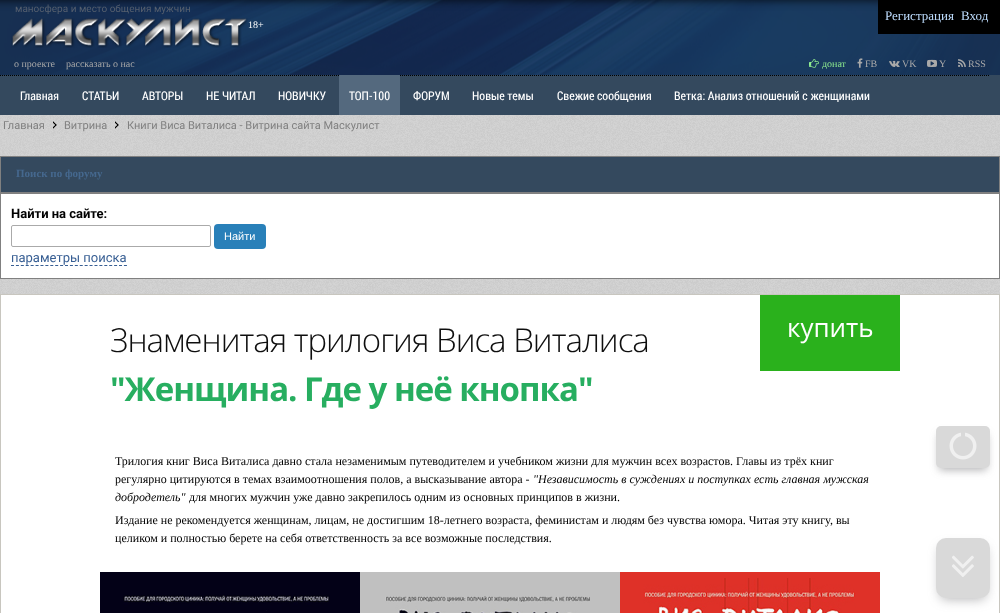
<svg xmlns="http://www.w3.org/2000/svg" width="1000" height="613">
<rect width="100%" height="100%" fill="#fff"/>
<image x="0" y="115" width="1000" height="179" href="media/1.png"/>
<image x="0" y="0" width="1000" height="75" href="media/2.png"/>
<rect x="878" width="122" height="34" fill="#000"/>
<rect x="-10" y="-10" width="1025" height="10" fill="#000000cc" filter="blur(5px)"/>
<text x="15" y="12" style="font-family:Roboto;font-size:10px;fill:#555f6e">маносфера и место общения мужчин</text>
<image x="11" y="18" width="237" height="30" href="media/3.png"/>
<text x="248" y="28" style="font-family:Liberation Serif;font-size:10px;fill:#fff">18+</text>
<text x="885" y="20" style="font-family:Liberation Serif;font-size:13px;fill:#bfdeff">Регистрация</text>
<text x="961" y="20" style="font-family:Liberation Serif;font-size:13px;fill:#bfdeff">Вход</text>
<rect y="75" width="1000" height="40" fill="#34495e"/>
<path d="M0 75.5h990" fill="none" stroke="#000" stroke-dasharray="1 1"/>
<text x="14" y="67" style="font-family:Liberation Serif;font-size:10px;fill:#a9a9a9">о проекте</text>
<text x="66" y="67" style="font-family:Liberation Serif;font-size:10px;fill:#a9a9a9">рассказать о нас</text>
<image x="809" y="59" width="10" height="9" href="media/4.png"/>
<text x="822" y="67" style="font-family:Liberation Serif;font-size:10px;fill:#90ee90">донат</text>
<image x="857" y="58" width="6" height="10" href="media/5.png"/>
<text x="865" y="67" style="font-family:Liberation Serif;font-size:10px;fill:#a9a9a9">FB</text>
<image x="889" y="60" width="11" height="7" href="media/6.png"/>
<text x="902" y="67" style="font-family:Liberation Serif;font-size:10px;fill:#a9a9a9">VK</text>
<image x="927" y="59" width="10" height="8" href="media/7.png"/>
<text x="939" y="67" style="font-family:Liberation Serif;font-size:10px;fill:#a9a9a9">Y</text>
<image x="958" y="59" width="8" height="8" href="media/8.png"/>
<text x="968" y="67" style="font-family:Liberation Serif;font-size:10px;fill:#a9a9a9">RSS</text>
<text x="20" y="100" style="font-family:Roboto Condensed;font-size:12px;fill:#fff">Главная</text>
<text x="82" y="100" style="font-family:Roboto Condensed;font-size:12px;fill:#fff">СТАТЬИ</text>
<text x="142" y="100" style="font-family:Roboto Condensed;font-size:12px;fill:#fff">АВТОРЫ</text>
<text x="206" y="100" style="font-family:Roboto Condensed;font-size:12px;fill:#fff">НЕ ЧИТАЛ</text>
<text x="278" y="100" style="font-family:Roboto Condensed;font-size:12px;fill:#fff">НОВИЧКУ</text>
<rect x="339" y="75" width="61" height="40" fill="#54697e"/>
<text x="349" y="100" style="font-family:Roboto Condensed;font-size:12px;fill:#fff">ТОП-100</text>
<text x="413" y="100" style="font-family:Roboto Condensed;font-size:12px;fill:#fff">ФОРУМ</text>
<text x="472" y="100" style="font-family:Roboto Condensed;font-size:12px;fill:#fff">Новые темы</text>
<text x="557" y="100" style="font-family:Roboto Condensed;font-size:12px;fill:#fff">Свежие сообщения</text>
<text x="674" y="100" style="font-family:Roboto Condensed;font-size:12px;fill:#fff">Ветка: Анализ отношений с женщинами</text>
<text x="3" y="129" style="font-family:Roboto;font-size:11px;fill:#808080">Главная</text>
<image x="53" y="121" width="4" height="8" href="media/9.png"/>
<text x="64" y="129" style="font-family:Roboto;font-size:11px;fill:#808080">Витрина</text>
<image x="115" y="121" width="4" height="8" href="media/10.png"/>
<text x="127" y="129" style="font-family:Roboto;font-size:11px;fill:#808080">Книги Виса Виталиса - Витрина сайта Маскулист</text>
<rect x="0.5" y="156.5" width="999" height="36" fill="#34495e" stroke="#808080"/>
<text x="16" y="177" style="font-family:Liberation Serif;font-size:11px;font-weight:bold;fill:#45688e">Поиск по форуму</text>
<rect x="0.5" y="193.5" width="999" height="85" fill="#fff" stroke="#808080"/>
<text x="11" y="218" style="font-family:Roboto;font-size:13px;font-weight:bold;fill:#000">Найти на сайте:</text>
<rect x="11.5" y="225.5" width="199" height="21" rx="1.5" fill="none" stroke="#aaa"/>
<rect x="214" y="224" width="52" height="25" rx="4" fill="#2980b9"/>
<text x="224" y="240" style="font-family:Liberation Sans;font-size:11px;fill:#fff">Найти</text>
<text x="11" y="262" style="font-family:Roboto;font-size:13px;fill:#375e93">параметры поиска</text>
<path d="M11 265.5h116" fill="none" stroke="#375e93" stroke-dasharray="3 1.91"/>
<rect x="0.5" y="294.5" width="999" height="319" fill="none" stroke="#c8c6bf"/>
<text x="110" y="352" style="font-family:Open Sans;font-size:33px;font-weight:300;letter-spacing:-1px;fill:#0e0e0e">Знаменитая трилогия Виса Виталиса</text>
<text x="110" y="401" style="font-family:Open Sans;font-size:33px;font-weight:bold;letter-spacing:-1px;fill:#27ae60">"Женщина. Где у неё кнопка"</text>
<rect x="760" y="295" width="140" height="76" fill="#2ab11c"/>
<text x="787" y="337" style="font-family:Open Sans;font-size:26px;fill:#fff">купить</text>
<text x="115" y="465" style="font-family:Liberation Serif;font-size:12px;fill:#000">Трилогия книг Виса Виталиса давно стала незаменимым путеводителем и учебником жизни для мужчин всех возрастов. Главы из трёх книг</text>
<text x="115" y="483" style="font-family:Liberation Serif;font-size:12px;fill:#000">регулярно цитируются в темах взаимоотношения полов, а высказывание автора -</text>
<text x="533" y="483" style="font-family:Liberation Serif;font-size:12px;font-style:italic;fill:#000">"Независимость в суждениях и поступках есть главная мужская</text>
<text x="115" y="501" style="font-family:Liberation Serif;font-size:12px;font-style:italic;fill:#000">добродетель"</text>
<text x="189" y="501" style="font-family:Liberation Serif;font-size:12px;fill:#000">для многих мужчин уже давно закрепилось одним из основных принципов в жизни.</text>
<text x="115" y="524" style="font-family:Liberation Serif;font-size:12px;fill:#000">Издание не рекомендуется женщинам, лицам, не достигшим 18-летнего возраста, феминистам и людям без чувства юмора. Читая эту книгу, вы</text>
<text x="115" y="542" style="font-family:Liberation Serif;font-size:12px;fill:#000">целиком и полностью берете на себя ответственность за все возможные последствия.</text>
<rect x="100" y="572" width="260" height="41" fill="#030117"/>
<image x="123" y="594" width="207" height="17" href="media/11.png"/>
<rect x="360" y="572" width="260" height="41" fill="#c0c0c0"/>
<image x="385" y="596" width="205" height="17" href="media/12.png"/>
<rect x="620" y="572" width="260" height="41" fill="#df3128"/>
<image x="643" y="578" width="213" height="35" href="media/13.png"/>
<rect x="939" y="434" width="48" height="36" rx="2" fill="#66666a80" filter="blur(4px)"/>
<rect x="936" y="426" width="54" height="42" rx="5" fill="#d9d9d9"/>
<image x="949" y="432" width="28" height="28" href="media/14.png"/>
<rect x="940" y="547" width="46" height="52" rx="6" fill="#66666a80" filter="blur(6px)"/>
<rect x="936" y="538" width="54" height="60" rx="10" fill="#d9d9d9"/>
<image x="952" y="555" width="22" height="22" href="media/15.png"/>
</svg>
